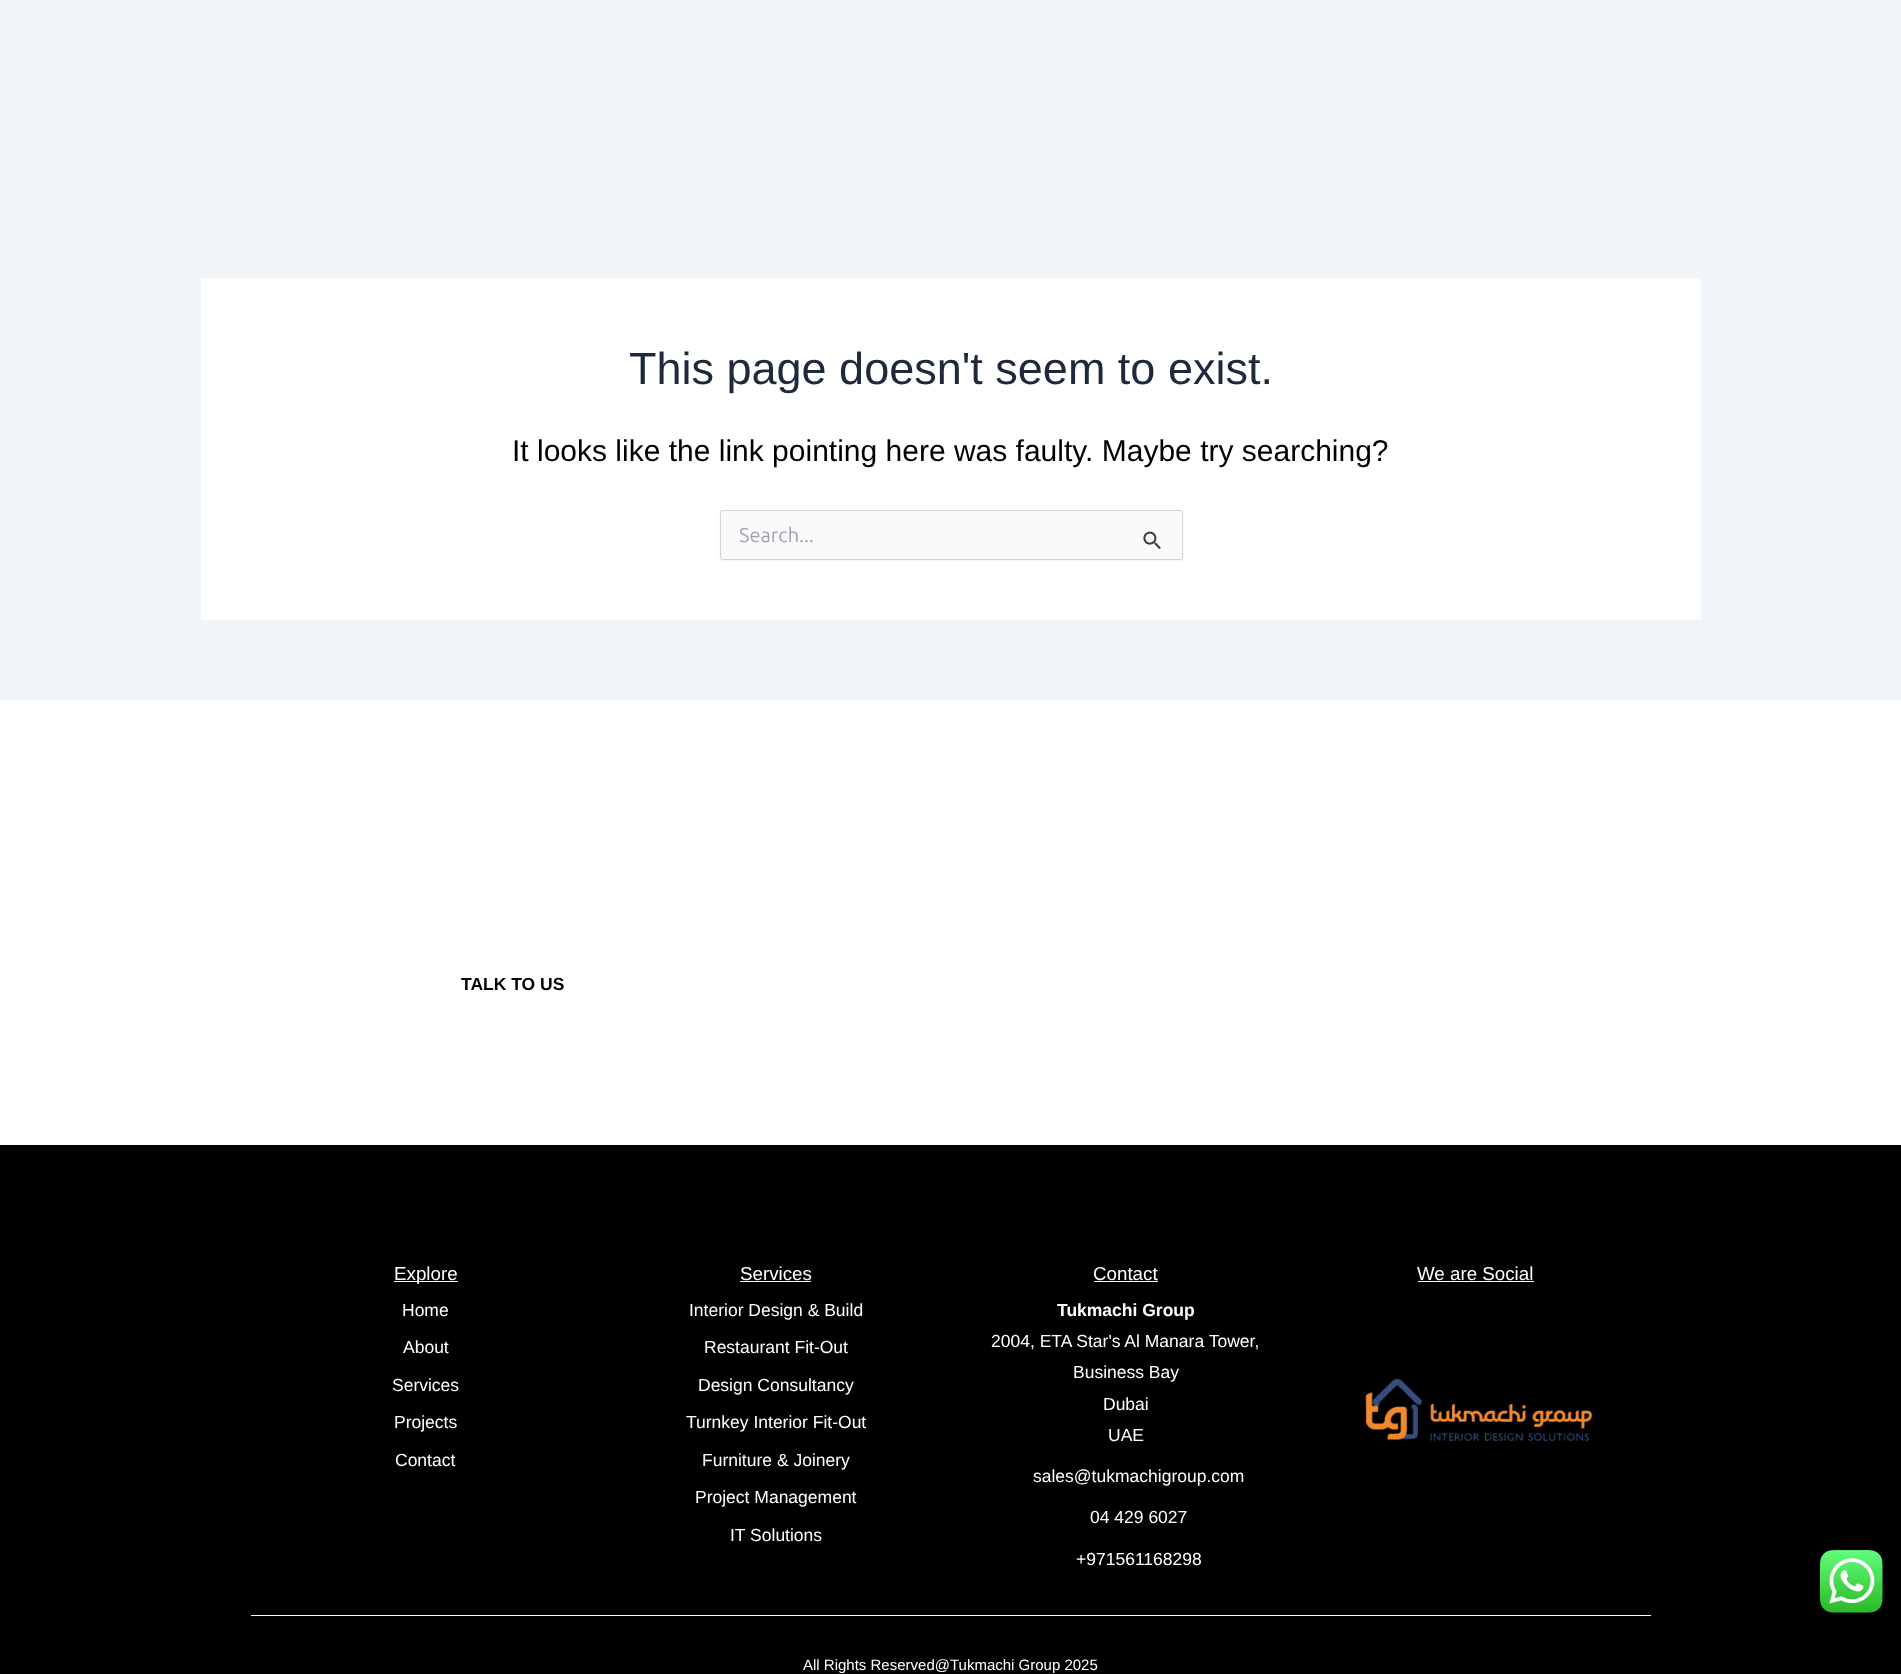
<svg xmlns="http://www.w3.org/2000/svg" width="1901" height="1674">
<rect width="100%" height="100%" fill="#f0f5fa"/>
<rect x="201" y="278" width="1500" height="342" fill="#fff"/>
<text x="629" y="384" style="font-family:Liberation Sans;font-size:45px;fill:#1e293b">This page doesn't seem to exist.</text>
<text x="512" y="461" style="font-family:Liberation Sans;font-size:30px;fill:#000">It looks like the link pointing here was faulty. Maybe try searching?</text>
<rect x="720" y="511" width="463" height="50" rx="2.5" fill="#0000000d" filter="blur(1px)"/>
<rect x="720.5" y="510.5" width="462" height="49" rx="2" fill="#fafafa" stroke="#d1d5db"/>
<text x="739" y="542" style="font-family:Ubuntu;font-size:20px;fill:#9ca3af">Search...</text>
<image x="1143" y="531" width="18" height="18" href="media/1.png"/>
<rect y="700" width="1901" height="445" fill="#fff"/>
<text x="461" y="990" style="font-family:Liberation Sans;font-size:17.5px;font-weight:bold;fill:#000">TALK TO US</text>
<rect y="1145" width="1901" height="529" fill="#000"/>
<rect x="394" y="1281" width="64" height="1" fill="#fff"/>
<text x="394" y="1280" style="font-family:Liberation Sans;font-size:18.75px;fill:#fff">Explore</text>
<text x="402" y="1316" style="font-family:Liberation Sans;font-size:17.5px;fill:#fff">Home</text>
<text x="403" y="1353" style="font-family:Liberation Sans;font-size:17.5px;fill:#fff">About</text>
<text x="392" y="1391" style="font-family:Liberation Sans;font-size:17.5px;fill:#fff">Services</text>
<text x="394" y="1428" style="font-family:Liberation Sans;font-size:17.5px;fill:#fff">Projects</text>
<text x="395" y="1466" style="font-family:Liberation Sans;font-size:17.5px;fill:#fff">Contact</text>
<text x="740" y="1280" style="font-family:Liberation Sans;font-size:18.75px;fill:#fff">Services</text>
<rect x="740" y="1281" width="71" height="1" fill="#fff"/>
<text x="689" y="1316" style="font-family:Liberation Sans;font-size:17.5px;fill:#fff">Interior Design &amp; Build</text>
<text x="704" y="1353" style="font-family:Liberation Sans;font-size:17.5px;fill:#fff">Restaurant Fit-Out</text>
<text x="698" y="1391" style="font-family:Liberation Sans;font-size:17.5px;fill:#fff">Design Consultancy</text>
<text x="686" y="1428" style="font-family:Liberation Sans;font-size:17.5px;fill:#fff">Turnkey Interior Fit-Out</text>
<text x="702" y="1466" style="font-family:Liberation Sans;font-size:17.5px;fill:#fff">Furniture &amp; Joinery</text>
<text x="695" y="1503" style="font-family:Liberation Sans;font-size:17.5px;fill:#fff">Project Management</text>
<text x="730" y="1541" style="font-family:Liberation Sans;font-size:17.5px;fill:#fff">IT Solutions</text>
<text x="1093" y="1280" style="font-family:Liberation Sans;font-size:18.75px;fill:#fff">Contact</text>
<rect x="1094" y="1281" width="64" height="1" fill="#fff"/>
<text x="1057" y="1316" style="font-family:Liberation Sans;font-size:17.5px;font-weight:bold;fill:#fff">Tukmachi Group</text>
<text x="991" y="1347" style="font-family:Liberation Sans;font-size:17.5px;fill:#fff">2004, ETA Star's Al Manara Tower,</text>
<text x="1073" y="1378" style="font-family:Liberation Sans;font-size:17.5px;fill:#fff">Business Bay</text>
<text x="1103" y="1410" style="font-family:Liberation Sans;font-size:17.5px;fill:#fff">Dubai</text>
<text x="1108" y="1441" style="font-family:Liberation Sans;font-size:17.5px;fill:#fff">UAE</text>
<text x="1033" y="1482" style="font-family:Liberation Sans;font-size:17.5px;fill:#fff">sales@tukmachigroup.com</text>
<text x="1090" y="1523" style="font-family:Liberation Sans;font-size:17.5px;fill:#fff">04 429 6027</text>
<text x="1076" y="1565" style="font-family:Liberation Sans;font-size:17.5px;fill:#fff">+971561168298</text>
<text x="1417" y="1280" style="font-family:Liberation Sans;font-size:18.75px;fill:#fff">We are Social</text>
<rect x="1418" y="1281" width="116" height="1" fill="#fff"/>
<image x="1365" y="1378" width="228" height="63" href="media/2.png"/>
<rect x="251" y="1615" width="1400" height="1" fill="#fff"/>
<text x="803" y="1670" style="font-family:Liberation Sans;font-size:15px;fill:#fff">All Rights Reserved@Tukmachi Group 2025</text>
<image x="1820" y="1550" width="63" height="63" href="media/3.png"/>
</svg>
